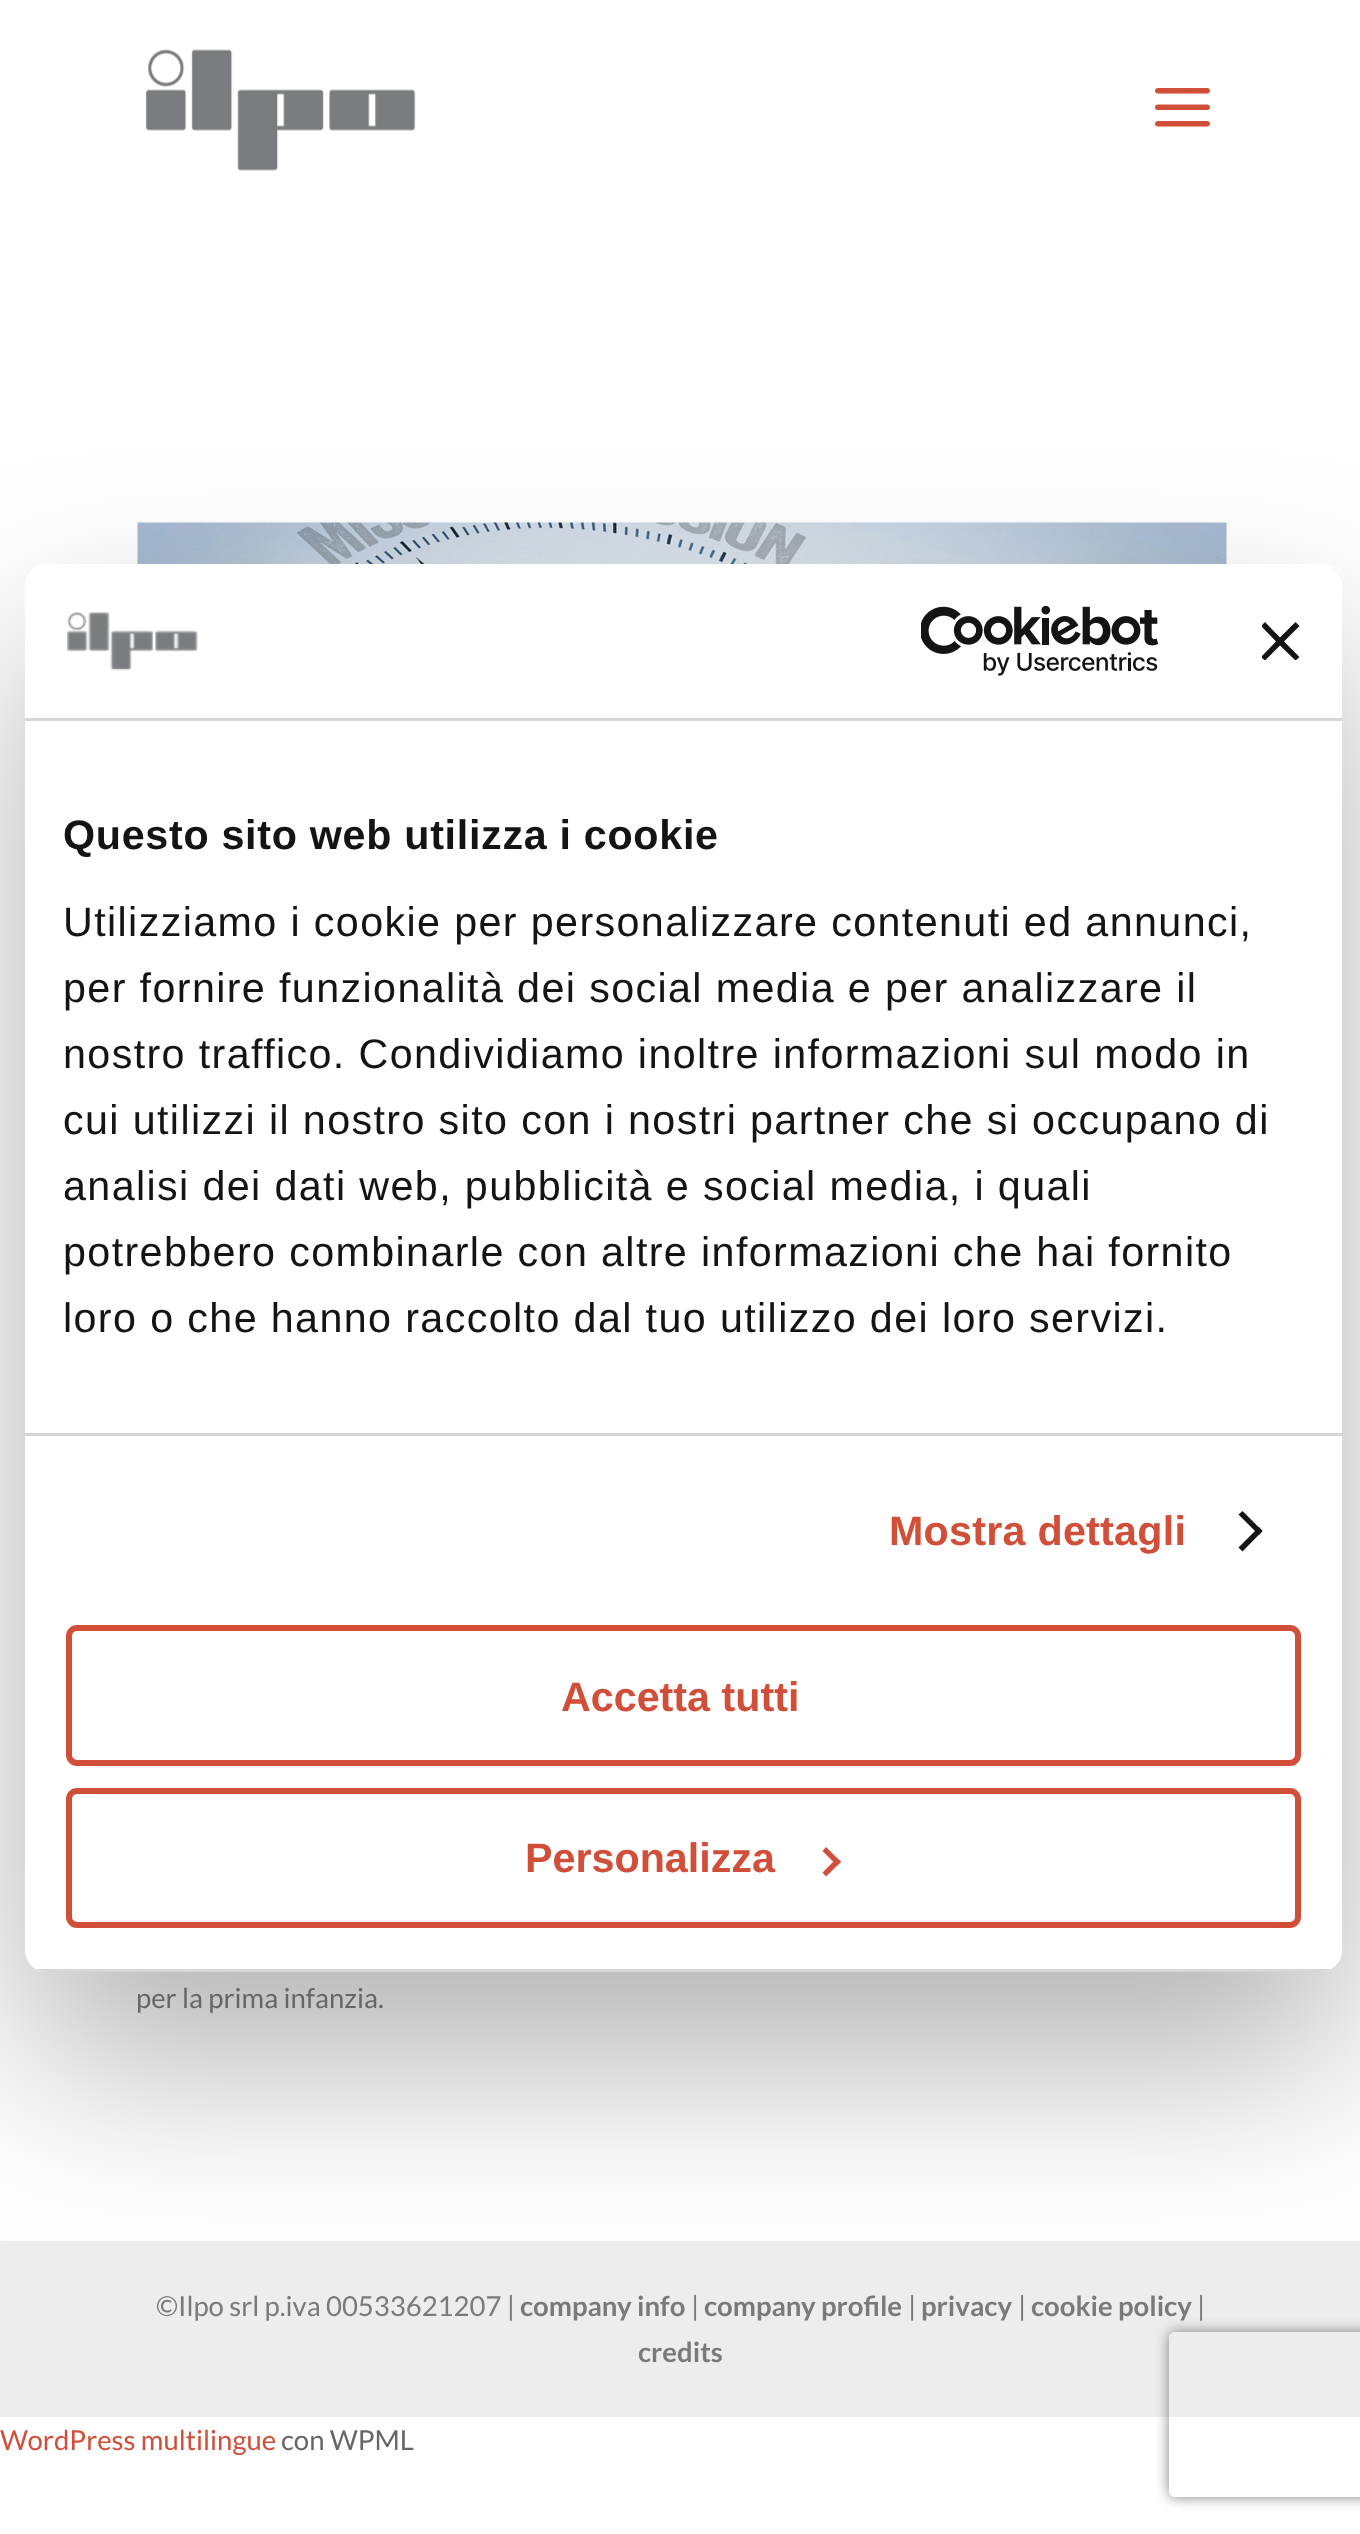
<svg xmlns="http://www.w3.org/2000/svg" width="1360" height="2534">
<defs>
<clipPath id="clip1"><path d="M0 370h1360v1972h-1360zm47 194h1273c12 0 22 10 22 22v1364c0 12-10 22-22 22h-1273c-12 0-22-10-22-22v-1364c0-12 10-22 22-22z" clip-rule="evenodd"/></clipPath>
<clipPath id="clip2"><rect x="1262" y="622" width="39" height="38"/></clipPath>
<clipPath id="clip3"><rect x="25" y="564" width="1317" height="1408" rx="22"/></clipPath>
<clipPath id="clip4"><path d="M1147 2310h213v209h-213zm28 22h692c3.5 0 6 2.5 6 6v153c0 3.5-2.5 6-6 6h-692c-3.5 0-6-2.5-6-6v-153c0-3.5 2.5-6 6-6z" clip-rule="evenodd"/></clipPath>
</defs>
<rect width="100%" height="100%" fill="#fff"/>
<image x="137" y="522" width="1090" height="42" href="media/5.png"/>
<rect y="2241" width="1360" height="176" fill="#ededed"/>
<g clip-path="url(#clip1)">
<rect x="25" y="652" width="1317" height="1408" rx="22" fill="#0000004d" filter="blur(93.5px)"/>
</g>
<rect x="25" y="564" width="1317" height="1408" rx="22" fill="#fff"/>
<rect x="25" y="718" width="1317" height="3" fill="#d6d6d6"/>
<image x="67" y="612" width="131" height="59" href="media/1.png"/>
<image x="921" y="605" width="238" height="71" href="media/2.png"/>
<g clip-path="url(#clip2)">
<path d="M1299.5 626l-4-4l-15.5 15.5l-15-15.5l-4 4l15 15.5l-15 15.5l4 3.5l15-15l15.5 15l4-3.5l-15.5-15.5z" fill="#141414"/>
</g>
<rect x="25" y="1433" width="1317" height="3" fill="#d6d6d6"/>
<text x="63" y="849" style="font-family:Liberation Sans;font-size:41.25px;font-weight:bold;letter-spacing:0.7px;fill:#141414">Questo sito web utilizza i cookie</text>
<text x="63" y="936" style="font-family:Liberation Sans;font-size:41.25px;letter-spacing:1.38px;fill:#141414">Utilizziamo i cookie per personalizzare contenuti ed annunci,</text>
<text x="63" y="1002" style="font-family:Liberation Sans;font-size:41.25px;letter-spacing:1.38px;fill:#141414">per fornire funzionalità dei social media e per analizzare il</text>
<text x="63" y="1068" style="font-family:Liberation Sans;font-size:41.25px;letter-spacing:1.38px;fill:#141414">nostro traffico. Condividiamo inoltre informazioni sul modo in</text>
<text x="63" y="1134" style="font-family:Liberation Sans;font-size:41.25px;letter-spacing:1.38px;fill:#141414">cui utilizzi il nostro sito con i nostri partner che si occupano di</text>
<text x="63" y="1200" style="font-family:Liberation Sans;font-size:41.25px;letter-spacing:1.38px;fill:#141414">analisi dei dati web, pubblicità e social media, i quali</text>
<text x="63" y="1266" style="font-family:Liberation Sans;font-size:41.25px;letter-spacing:1.38px;fill:#141414">potrebbero combinarle con altre informazioni che hai fornito</text>
<text x="63" y="1332" style="font-family:Liberation Sans;font-size:41.25px;letter-spacing:1.38px;fill:#141414">loro o che hanno raccolto dal tuo utilizzo dei loro servizi.</text>
<text x="889" y="1545" style="font-family:Liberation Sans;font-size:41.25px;font-weight:bold;letter-spacing:0.25px;fill:#d14e38">Mostra dettagli</text>
<path d="M1242.5 1511l20 20l-3.5 4l-20.5-20.5z" fill="#141414"/>
<path d="M1259 1527l3.5 4l-20 20.5l-4-4z" fill="#141414"/>
<g clip-path="url(#clip3)">
<rect x="36" y="1969" width="1295" height="3" fill="#d6d6d6"/>
</g>
<rect x="69" y="1628" width="1229" height="135" rx="8" fill="none" stroke="#d14e38" stroke-width="6"/>
<text x="561" y="1711" style="font-family:Liberation Sans;font-size:41.25px;font-weight:bold;fill:#d14e38">Accetta tutti</text>
<rect x="69" y="1791" width="1229" height="134" rx="8" fill="none" stroke="#d14e38" stroke-width="6"/>
<text x="525" y="1872" style="font-family:Liberation Sans;font-size:41.25px;font-weight:bold;fill:#d14e38">Personalizza</text>
<path d="M826 1847l15 15l-4 3.5l-14.5-14.5z" fill="#d14e38"/>
<path d="M837 1858l4 4l-15 14.5l-3.5-4z" fill="#d14e38"/>
<image x="145" y="49" width="271" height="122" href="media/3.png"/>
<image x="1155" y="88" width="55" height="39" href="media/4.png"/>
<text x="136" y="2008" style="font-family:Lato;font-size:27.5px;fill:#666">per la prima infanzia.</text>
<text x="156" y="2316" style="font-family:Lato;font-size:27.5px;fill:#7a7a7a">©Ilpo srl p.iva 00533621207 |</text>
<text x="520" y="2316" style="font-family:Lato;font-size:27.5px;font-weight:bold;fill:#7a7a7a">company info</text>
<text x="691" y="2316" style="font-family:Lato;font-size:27.5px;fill:#7a7a7a">|</text>
<text x="704" y="2316" style="font-family:Lato;font-size:27.5px;font-weight:bold;fill:#7a7a7a">company profile</text>
<text x="908" y="2316" style="font-family:Lato;font-size:27.5px;fill:#7a7a7a">|</text>
<text x="921" y="2316" style="font-family:Lato;font-size:27.5px;font-weight:bold;fill:#7a7a7a">privacy</text>
<text x="1018" y="2316" style="font-family:Lato;font-size:27.5px;fill:#7a7a7a">|</text>
<text x="1031" y="2316" style="font-family:Lato;font-size:27.5px;font-weight:bold;fill:#7a7a7a">cookie policy</text>
<text x="1197" y="2316" style="font-family:Lato;font-size:27.5px;fill:#7a7a7a">|</text>
<text x="638" y="2362" style="font-family:Lato;font-size:27.5px;font-weight:bold;fill:#7a7a7a">credits</text>
<text x="0" y="2450" style="font-family:Lato;font-size:27.5px;fill:#d14e38">WordPress multilingue</text>
<text x="281" y="2450" style="font-family:Lato;font-size:27.5px;fill:#666">con WPML</text>
<g clip-path="url(#clip4)">
<rect x="1169" y="2332" width="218" height="165" rx="6" fill="#808080" filter="blur(7px)"/>
</g>
</svg>
